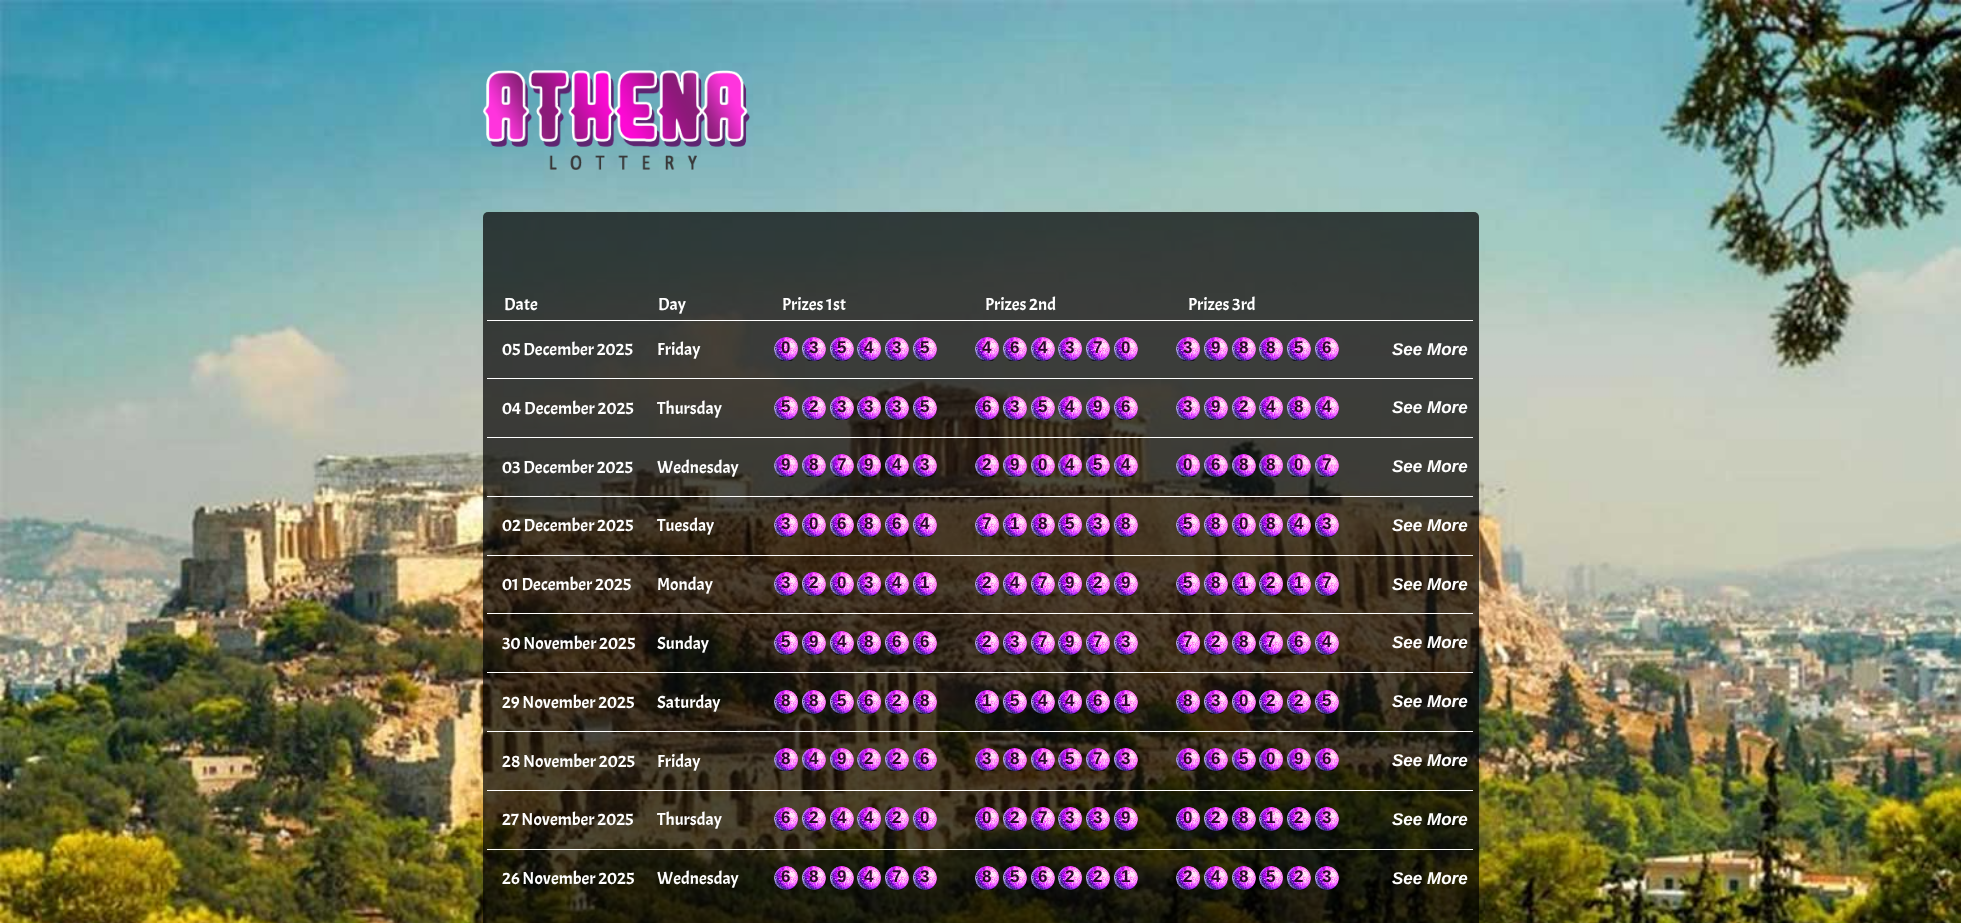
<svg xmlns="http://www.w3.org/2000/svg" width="1961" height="923">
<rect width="100%" height="100%" fill="#fff"/>
<image x="0" y="0" width="1961" height="923" href="media/1.png"/>
<image x="483" y="70" width="267" height="100" href="media/2.png"/>
<rect x="483" y="212" width="996" height="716" rx="5" fill="#000000b3"/>
<text x="504" y="310" style="font-family:Acme;font-size:17.5px;fill:#fff">Date</text>
<text x="658" y="310" style="font-family:Acme;font-size:17.5px;fill:#fff">Day</text>
<text x="782" y="310" style="font-family:Acme;font-size:17.5px;fill:#fff">Prizes 1st</text>
<text x="985" y="310" style="font-family:Acme;font-size:17.5px;fill:#fff">Prizes 2nd</text>
<text x="1188" y="310" style="font-family:Acme;font-size:17.5px;fill:#fff">Prizes 3rd</text>
<rect x="487" y="320" width="986" height="1" fill="#fff"/>
<text x="502" y="355" style="font-family:Acme;font-size:17.5px;fill:#fff">05 December 2025</text>
<text x="657" y="355" style="font-family:Acme;font-size:17.5px;fill:#fff">Friday</text>
<image x="774" y="337" width="24" height="24" href="media/3.png"/>
<text x="781" y="353" style="font-family:Liberation Sans;font-size:17px;font-weight:bold;fill:#280a29">0</text>
<image x="802" y="337" width="24" height="24" href="media/4.png"/>
<text x="809" y="353" style="font-family:Liberation Sans;font-size:17px;font-weight:bold;fill:#280a29">3</text>
<image x="830" y="337" width="24" height="24" href="media/5.png"/>
<text x="837" y="353" style="font-family:Liberation Sans;font-size:17px;font-weight:bold;fill:#280a29">5</text>
<image x="857" y="337" width="24" height="24" href="media/6.png"/>
<text x="864" y="353" style="font-family:Liberation Sans;font-size:17px;font-weight:bold;fill:#280a29">4</text>
<image x="885" y="337" width="24" height="24" href="media/7.png"/>
<text x="892" y="353" style="font-family:Liberation Sans;font-size:17px;font-weight:bold;fill:#280a29">3</text>
<image x="913" y="337" width="24" height="24" href="media/8.png"/>
<text x="920" y="353" style="font-family:Liberation Sans;font-size:17px;font-weight:bold;fill:#280a29">5</text>
<image x="975" y="337" width="24" height="24" href="media/9.png"/>
<text x="982" y="353" style="font-family:Liberation Sans;font-size:17px;font-weight:bold;fill:#280a29">4</text>
<image x="1003" y="337" width="24" height="24" href="media/10.png"/>
<text x="1010" y="353" style="font-family:Liberation Sans;font-size:17px;font-weight:bold;fill:#280a29">6</text>
<image x="1031" y="337" width="24" height="24" href="media/11.png"/>
<text x="1038" y="353" style="font-family:Liberation Sans;font-size:17px;font-weight:bold;fill:#280a29">4</text>
<image x="1058" y="337" width="24" height="24" href="media/12.png"/>
<text x="1065" y="353" style="font-family:Liberation Sans;font-size:17px;font-weight:bold;fill:#280a29">3</text>
<image x="1086" y="337" width="24" height="24" href="media/13.png"/>
<text x="1093" y="353" style="font-family:Liberation Sans;font-size:17px;font-weight:bold;fill:#280a29">7</text>
<image x="1114" y="337" width="24" height="24" href="media/14.png"/>
<text x="1121" y="353" style="font-family:Liberation Sans;font-size:17px;font-weight:bold;fill:#280a29">0</text>
<image x="1176" y="337" width="24" height="24" href="media/15.png"/>
<text x="1183" y="353" style="font-family:Liberation Sans;font-size:17px;font-weight:bold;fill:#280a29">3</text>
<image x="1204" y="337" width="24" height="24" href="media/16.png"/>
<text x="1211" y="353" style="font-family:Liberation Sans;font-size:17px;font-weight:bold;fill:#280a29">9</text>
<image x="1232" y="337" width="24" height="24" href="media/17.png"/>
<text x="1239" y="353" style="font-family:Liberation Sans;font-size:17px;font-weight:bold;fill:#280a29">8</text>
<image x="1259" y="337" width="24" height="24" href="media/18.png"/>
<text x="1266" y="353" style="font-family:Liberation Sans;font-size:17px;font-weight:bold;fill:#280a29">8</text>
<image x="1287" y="337" width="24" height="24" href="media/19.png"/>
<text x="1294" y="353" style="font-family:Liberation Sans;font-size:17px;font-weight:bold;fill:#280a29">5</text>
<image x="1315" y="337" width="24" height="24" href="media/20.png"/>
<text x="1322" y="353" style="font-family:Liberation Sans;font-size:17px;font-weight:bold;fill:#280a29">6</text>
<text x="1392" y="355" style="font-family:Liberation Sans;font-size:17px;font-weight:bold;font-style:italic;fill:#fff">See More</text>
<rect x="487" y="378" width="986" height="1" fill="#fff"/>
<text x="502" y="414" style="font-family:Acme;font-size:17.5px;fill:#fff">04 December 2025</text>
<text x="657" y="414" style="font-family:Acme;font-size:17.5px;fill:#fff">Thursday</text>
<image x="774" y="396" width="24" height="24" href="media/21.png"/>
<text x="781" y="412" style="font-family:Liberation Sans;font-size:17px;font-weight:bold;fill:#280a29">5</text>
<image x="802" y="396" width="24" height="24" href="media/22.png"/>
<text x="809" y="412" style="font-family:Liberation Sans;font-size:17px;font-weight:bold;fill:#280a29">2</text>
<image x="830" y="396" width="24" height="24" href="media/23.png"/>
<text x="837" y="412" style="font-family:Liberation Sans;font-size:17px;font-weight:bold;fill:#280a29">3</text>
<image x="857" y="396" width="24" height="24" href="media/24.png"/>
<text x="864" y="412" style="font-family:Liberation Sans;font-size:17px;font-weight:bold;fill:#280a29">3</text>
<image x="885" y="396" width="24" height="24" href="media/25.png"/>
<text x="892" y="412" style="font-family:Liberation Sans;font-size:17px;font-weight:bold;fill:#280a29">3</text>
<image x="913" y="396" width="24" height="24" href="media/26.png"/>
<text x="920" y="412" style="font-family:Liberation Sans;font-size:17px;font-weight:bold;fill:#280a29">5</text>
<image x="975" y="396" width="24" height="24" href="media/27.png"/>
<text x="982" y="412" style="font-family:Liberation Sans;font-size:17px;font-weight:bold;fill:#280a29">6</text>
<image x="1003" y="396" width="24" height="24" href="media/28.png"/>
<text x="1010" y="412" style="font-family:Liberation Sans;font-size:17px;font-weight:bold;fill:#280a29">3</text>
<image x="1031" y="396" width="24" height="24" href="media/29.png"/>
<text x="1038" y="412" style="font-family:Liberation Sans;font-size:17px;font-weight:bold;fill:#280a29">5</text>
<image x="1058" y="396" width="24" height="24" href="media/30.png"/>
<text x="1065" y="412" style="font-family:Liberation Sans;font-size:17px;font-weight:bold;fill:#280a29">4</text>
<image x="1086" y="396" width="24" height="24" href="media/31.png"/>
<text x="1093" y="412" style="font-family:Liberation Sans;font-size:17px;font-weight:bold;fill:#280a29">9</text>
<image x="1114" y="396" width="24" height="24" href="media/32.png"/>
<text x="1121" y="412" style="font-family:Liberation Sans;font-size:17px;font-weight:bold;fill:#280a29">6</text>
<image x="1176" y="396" width="24" height="24" href="media/33.png"/>
<text x="1183" y="412" style="font-family:Liberation Sans;font-size:17px;font-weight:bold;fill:#280a29">3</text>
<image x="1204" y="396" width="24" height="24" href="media/34.png"/>
<text x="1211" y="412" style="font-family:Liberation Sans;font-size:17px;font-weight:bold;fill:#280a29">9</text>
<image x="1232" y="396" width="24" height="24" href="media/35.png"/>
<text x="1239" y="412" style="font-family:Liberation Sans;font-size:17px;font-weight:bold;fill:#280a29">2</text>
<image x="1259" y="396" width="24" height="24" href="media/36.png"/>
<text x="1266" y="412" style="font-family:Liberation Sans;font-size:17px;font-weight:bold;fill:#280a29">4</text>
<image x="1287" y="396" width="24" height="24" href="media/37.png"/>
<text x="1294" y="412" style="font-family:Liberation Sans;font-size:17px;font-weight:bold;fill:#280a29">8</text>
<image x="1315" y="396" width="24" height="24" href="media/38.png"/>
<text x="1322" y="412" style="font-family:Liberation Sans;font-size:17px;font-weight:bold;fill:#280a29">4</text>
<text x="1392" y="413" style="font-family:Liberation Sans;font-size:17px;font-weight:bold;font-style:italic;fill:#fff">See More</text>
<rect x="487" y="437" width="986" height="1" fill="#fff"/>
<text x="502" y="473" style="font-family:Acme;font-size:17.5px;fill:#fff">03 December 2025</text>
<text x="657" y="473" style="font-family:Acme;font-size:17.5px;fill:#fff">Wednesday</text>
<image x="774" y="454" width="24" height="23" href="media/39.png"/>
<text x="781" y="470" style="font-family:Liberation Sans;font-size:17px;font-weight:bold;fill:#280a29">9</text>
<image x="802" y="454" width="24" height="23" href="media/40.png"/>
<text x="809" y="470" style="font-family:Liberation Sans;font-size:17px;font-weight:bold;fill:#280a29">8</text>
<image x="830" y="454" width="24" height="23" href="media/41.png"/>
<text x="837" y="470" style="font-family:Liberation Sans;font-size:17px;font-weight:bold;fill:#280a29">7</text>
<image x="857" y="454" width="24" height="23" href="media/42.png"/>
<text x="864" y="470" style="font-family:Liberation Sans;font-size:17px;font-weight:bold;fill:#280a29">9</text>
<image x="885" y="454" width="24" height="23" href="media/43.png"/>
<text x="892" y="470" style="font-family:Liberation Sans;font-size:17px;font-weight:bold;fill:#280a29">4</text>
<image x="913" y="454" width="24" height="23" href="media/44.png"/>
<text x="920" y="470" style="font-family:Liberation Sans;font-size:17px;font-weight:bold;fill:#280a29">3</text>
<image x="975" y="454" width="24" height="23" href="media/45.png"/>
<text x="982" y="470" style="font-family:Liberation Sans;font-size:17px;font-weight:bold;fill:#280a29">2</text>
<image x="1003" y="454" width="24" height="23" href="media/46.png"/>
<text x="1010" y="470" style="font-family:Liberation Sans;font-size:17px;font-weight:bold;fill:#280a29">9</text>
<image x="1031" y="454" width="24" height="23" href="media/47.png"/>
<text x="1038" y="470" style="font-family:Liberation Sans;font-size:17px;font-weight:bold;fill:#280a29">0</text>
<image x="1058" y="454" width="24" height="23" href="media/48.png"/>
<text x="1065" y="470" style="font-family:Liberation Sans;font-size:17px;font-weight:bold;fill:#280a29">4</text>
<image x="1086" y="454" width="24" height="23" href="media/49.png"/>
<text x="1093" y="470" style="font-family:Liberation Sans;font-size:17px;font-weight:bold;fill:#280a29">5</text>
<image x="1114" y="454" width="24" height="23" href="media/50.png"/>
<text x="1121" y="470" style="font-family:Liberation Sans;font-size:17px;font-weight:bold;fill:#280a29">4</text>
<image x="1176" y="454" width="24" height="23" href="media/51.png"/>
<text x="1183" y="470" style="font-family:Liberation Sans;font-size:17px;font-weight:bold;fill:#280a29">0</text>
<image x="1204" y="454" width="24" height="23" href="media/52.png"/>
<text x="1211" y="470" style="font-family:Liberation Sans;font-size:17px;font-weight:bold;fill:#280a29">6</text>
<image x="1232" y="454" width="24" height="23" href="media/53.png"/>
<text x="1239" y="470" style="font-family:Liberation Sans;font-size:17px;font-weight:bold;fill:#280a29">8</text>
<image x="1259" y="454" width="24" height="23" href="media/54.png"/>
<text x="1266" y="470" style="font-family:Liberation Sans;font-size:17px;font-weight:bold;fill:#280a29">8</text>
<image x="1287" y="454" width="24" height="23" href="media/55.png"/>
<text x="1294" y="470" style="font-family:Liberation Sans;font-size:17px;font-weight:bold;fill:#280a29">0</text>
<image x="1315" y="454" width="24" height="23" href="media/56.png"/>
<text x="1322" y="470" style="font-family:Liberation Sans;font-size:17px;font-weight:bold;fill:#280a29">7</text>
<text x="1392" y="472" style="font-family:Liberation Sans;font-size:17px;font-weight:bold;font-style:italic;fill:#fff">See More</text>
<rect x="487" y="496" width="986" height="1" fill="#fff"/>
<text x="502" y="531" style="font-family:Acme;font-size:17.5px;fill:#fff">02 December 2025</text>
<text x="657" y="531" style="font-family:Acme;font-size:17.5px;fill:#fff">Tuesday</text>
<image x="774" y="513" width="24" height="24" href="media/57.png"/>
<text x="781" y="529" style="font-family:Liberation Sans;font-size:17px;font-weight:bold;fill:#280a29">3</text>
<image x="802" y="513" width="24" height="24" href="media/58.png"/>
<text x="809" y="529" style="font-family:Liberation Sans;font-size:17px;font-weight:bold;fill:#280a29">0</text>
<image x="830" y="513" width="24" height="24" href="media/59.png"/>
<text x="837" y="529" style="font-family:Liberation Sans;font-size:17px;font-weight:bold;fill:#280a29">6</text>
<image x="857" y="513" width="24" height="24" href="media/60.png"/>
<text x="864" y="529" style="font-family:Liberation Sans;font-size:17px;font-weight:bold;fill:#280a29">8</text>
<image x="885" y="513" width="24" height="24" href="media/61.png"/>
<text x="892" y="529" style="font-family:Liberation Sans;font-size:17px;font-weight:bold;fill:#280a29">6</text>
<image x="913" y="513" width="24" height="24" href="media/62.png"/>
<text x="920" y="529" style="font-family:Liberation Sans;font-size:17px;font-weight:bold;fill:#280a29">4</text>
<image x="975" y="513" width="24" height="24" href="media/63.png"/>
<text x="982" y="529" style="font-family:Liberation Sans;font-size:17px;font-weight:bold;fill:#280a29">7</text>
<image x="1003" y="513" width="24" height="24" href="media/64.png"/>
<text x="1010" y="529" style="font-family:Liberation Sans;font-size:17px;font-weight:bold;fill:#280a29">1</text>
<image x="1031" y="513" width="24" height="24" href="media/65.png"/>
<text x="1038" y="529" style="font-family:Liberation Sans;font-size:17px;font-weight:bold;fill:#280a29">8</text>
<image x="1058" y="513" width="24" height="24" href="media/66.png"/>
<text x="1065" y="529" style="font-family:Liberation Sans;font-size:17px;font-weight:bold;fill:#280a29">5</text>
<image x="1086" y="513" width="24" height="24" href="media/67.png"/>
<text x="1093" y="529" style="font-family:Liberation Sans;font-size:17px;font-weight:bold;fill:#280a29">3</text>
<image x="1114" y="513" width="24" height="24" href="media/68.png"/>
<text x="1121" y="529" style="font-family:Liberation Sans;font-size:17px;font-weight:bold;fill:#280a29">8</text>
<image x="1176" y="513" width="24" height="24" href="media/69.png"/>
<text x="1183" y="529" style="font-family:Liberation Sans;font-size:17px;font-weight:bold;fill:#280a29">5</text>
<image x="1204" y="513" width="24" height="24" href="media/70.png"/>
<text x="1211" y="529" style="font-family:Liberation Sans;font-size:17px;font-weight:bold;fill:#280a29">8</text>
<image x="1232" y="513" width="24" height="24" href="media/71.png"/>
<text x="1239" y="529" style="font-family:Liberation Sans;font-size:17px;font-weight:bold;fill:#280a29">0</text>
<image x="1259" y="513" width="24" height="24" href="media/72.png"/>
<text x="1266" y="529" style="font-family:Liberation Sans;font-size:17px;font-weight:bold;fill:#280a29">8</text>
<image x="1287" y="513" width="24" height="24" href="media/73.png"/>
<text x="1294" y="529" style="font-family:Liberation Sans;font-size:17px;font-weight:bold;fill:#280a29">4</text>
<image x="1315" y="513" width="24" height="24" href="media/74.png"/>
<text x="1322" y="529" style="font-family:Liberation Sans;font-size:17px;font-weight:bold;fill:#280a29">3</text>
<text x="1392" y="531" style="font-family:Liberation Sans;font-size:17px;font-weight:bold;font-style:italic;fill:#fff">See More</text>
<rect x="487" y="555" width="986" height="1" fill="#fff"/>
<text x="502" y="590" style="font-family:Acme;font-size:17.5px;fill:#fff">01 December 2025</text>
<text x="657" y="590" style="font-family:Acme;font-size:17.5px;fill:#fff">Monday</text>
<image x="774" y="572" width="24" height="24" href="media/75.png"/>
<text x="781" y="588" style="font-family:Liberation Sans;font-size:17px;font-weight:bold;fill:#280a29">3</text>
<image x="802" y="572" width="24" height="24" href="media/76.png"/>
<text x="809" y="588" style="font-family:Liberation Sans;font-size:17px;font-weight:bold;fill:#280a29">2</text>
<image x="830" y="572" width="24" height="24" href="media/77.png"/>
<text x="837" y="588" style="font-family:Liberation Sans;font-size:17px;font-weight:bold;fill:#280a29">0</text>
<image x="857" y="572" width="24" height="24" href="media/78.png"/>
<text x="864" y="588" style="font-family:Liberation Sans;font-size:17px;font-weight:bold;fill:#280a29">3</text>
<image x="885" y="572" width="24" height="24" href="media/79.png"/>
<text x="892" y="588" style="font-family:Liberation Sans;font-size:17px;font-weight:bold;fill:#280a29">4</text>
<image x="913" y="572" width="24" height="24" href="media/80.png"/>
<text x="920" y="588" style="font-family:Liberation Sans;font-size:17px;font-weight:bold;fill:#280a29">1</text>
<image x="975" y="572" width="24" height="24" href="media/81.png"/>
<text x="982" y="588" style="font-family:Liberation Sans;font-size:17px;font-weight:bold;fill:#280a29">2</text>
<image x="1003" y="572" width="24" height="24" href="media/82.png"/>
<text x="1010" y="588" style="font-family:Liberation Sans;font-size:17px;font-weight:bold;fill:#280a29">4</text>
<image x="1031" y="572" width="24" height="24" href="media/83.png"/>
<text x="1038" y="588" style="font-family:Liberation Sans;font-size:17px;font-weight:bold;fill:#280a29">7</text>
<image x="1058" y="572" width="24" height="24" href="media/84.png"/>
<text x="1065" y="588" style="font-family:Liberation Sans;font-size:17px;font-weight:bold;fill:#280a29">9</text>
<image x="1086" y="572" width="24" height="24" href="media/85.png"/>
<text x="1093" y="588" style="font-family:Liberation Sans;font-size:17px;font-weight:bold;fill:#280a29">2</text>
<image x="1114" y="572" width="24" height="24" href="media/86.png"/>
<text x="1121" y="588" style="font-family:Liberation Sans;font-size:17px;font-weight:bold;fill:#280a29">9</text>
<image x="1176" y="572" width="24" height="24" href="media/87.png"/>
<text x="1183" y="588" style="font-family:Liberation Sans;font-size:17px;font-weight:bold;fill:#280a29">5</text>
<image x="1204" y="572" width="24" height="24" href="media/88.png"/>
<text x="1211" y="588" style="font-family:Liberation Sans;font-size:17px;font-weight:bold;fill:#280a29">8</text>
<image x="1232" y="572" width="24" height="24" href="media/89.png"/>
<text x="1239" y="588" style="font-family:Liberation Sans;font-size:17px;font-weight:bold;fill:#280a29">1</text>
<image x="1259" y="572" width="24" height="24" href="media/90.png"/>
<text x="1266" y="588" style="font-family:Liberation Sans;font-size:17px;font-weight:bold;fill:#280a29">2</text>
<image x="1287" y="572" width="24" height="24" href="media/91.png"/>
<text x="1294" y="588" style="font-family:Liberation Sans;font-size:17px;font-weight:bold;fill:#280a29">1</text>
<image x="1315" y="572" width="24" height="24" href="media/92.png"/>
<text x="1322" y="588" style="font-family:Liberation Sans;font-size:17px;font-weight:bold;fill:#280a29">7</text>
<text x="1392" y="590" style="font-family:Liberation Sans;font-size:17px;font-weight:bold;font-style:italic;fill:#fff">See More</text>
<rect x="487" y="613" width="986" height="1" fill="#fff"/>
<text x="502" y="649" style="font-family:Acme;font-size:17.5px;fill:#fff">30 November 2025</text>
<text x="657" y="649" style="font-family:Acme;font-size:17.5px;fill:#fff">Sunday</text>
<image x="774" y="631" width="24" height="24" href="media/93.png"/>
<text x="781" y="647" style="font-family:Liberation Sans;font-size:17px;font-weight:bold;fill:#280a29">5</text>
<image x="802" y="631" width="24" height="24" href="media/94.png"/>
<text x="809" y="647" style="font-family:Liberation Sans;font-size:17px;font-weight:bold;fill:#280a29">9</text>
<image x="830" y="631" width="24" height="24" href="media/95.png"/>
<text x="837" y="647" style="font-family:Liberation Sans;font-size:17px;font-weight:bold;fill:#280a29">4</text>
<image x="857" y="631" width="24" height="24" href="media/96.png"/>
<text x="864" y="647" style="font-family:Liberation Sans;font-size:17px;font-weight:bold;fill:#280a29">8</text>
<image x="885" y="631" width="24" height="24" href="media/97.png"/>
<text x="892" y="647" style="font-family:Liberation Sans;font-size:17px;font-weight:bold;fill:#280a29">6</text>
<image x="913" y="631" width="24" height="24" href="media/98.png"/>
<text x="920" y="647" style="font-family:Liberation Sans;font-size:17px;font-weight:bold;fill:#280a29">6</text>
<image x="975" y="631" width="24" height="24" href="media/99.png"/>
<text x="982" y="647" style="font-family:Liberation Sans;font-size:17px;font-weight:bold;fill:#280a29">2</text>
<image x="1003" y="631" width="24" height="24" href="media/100.png"/>
<text x="1010" y="647" style="font-family:Liberation Sans;font-size:17px;font-weight:bold;fill:#280a29">3</text>
<image x="1031" y="631" width="24" height="24" href="media/101.png"/>
<text x="1038" y="647" style="font-family:Liberation Sans;font-size:17px;font-weight:bold;fill:#280a29">7</text>
<image x="1058" y="631" width="24" height="24" href="media/102.png"/>
<text x="1065" y="647" style="font-family:Liberation Sans;font-size:17px;font-weight:bold;fill:#280a29">9</text>
<image x="1086" y="631" width="24" height="24" href="media/103.png"/>
<text x="1093" y="647" style="font-family:Liberation Sans;font-size:17px;font-weight:bold;fill:#280a29">7</text>
<image x="1114" y="631" width="24" height="24" href="media/104.png"/>
<text x="1121" y="647" style="font-family:Liberation Sans;font-size:17px;font-weight:bold;fill:#280a29">3</text>
<image x="1176" y="631" width="24" height="24" href="media/105.png"/>
<text x="1183" y="647" style="font-family:Liberation Sans;font-size:17px;font-weight:bold;fill:#280a29">7</text>
<image x="1204" y="631" width="24" height="24" href="media/106.png"/>
<text x="1211" y="647" style="font-family:Liberation Sans;font-size:17px;font-weight:bold;fill:#280a29">2</text>
<image x="1232" y="631" width="24" height="24" href="media/107.png"/>
<text x="1239" y="647" style="font-family:Liberation Sans;font-size:17px;font-weight:bold;fill:#280a29">8</text>
<image x="1259" y="631" width="24" height="24" href="media/108.png"/>
<text x="1266" y="647" style="font-family:Liberation Sans;font-size:17px;font-weight:bold;fill:#280a29">7</text>
<image x="1287" y="631" width="24" height="24" href="media/109.png"/>
<text x="1294" y="647" style="font-family:Liberation Sans;font-size:17px;font-weight:bold;fill:#280a29">6</text>
<image x="1315" y="631" width="24" height="24" href="media/110.png"/>
<text x="1322" y="647" style="font-family:Liberation Sans;font-size:17px;font-weight:bold;fill:#280a29">4</text>
<text x="1392" y="648" style="font-family:Liberation Sans;font-size:17px;font-weight:bold;font-style:italic;fill:#fff">See More</text>
<rect x="487" y="672" width="986" height="1" fill="#fff"/>
<text x="502" y="708" style="font-family:Acme;font-size:17.5px;fill:#fff">29 November 2025</text>
<text x="657" y="708" style="font-family:Acme;font-size:17.5px;fill:#fff">Saturday</text>
<image x="774" y="690" width="24" height="24" href="media/111.png"/>
<text x="781" y="706" style="font-family:Liberation Sans;font-size:17px;font-weight:bold;fill:#280a29">8</text>
<image x="802" y="690" width="24" height="24" href="media/112.png"/>
<text x="809" y="706" style="font-family:Liberation Sans;font-size:17px;font-weight:bold;fill:#280a29">8</text>
<image x="830" y="690" width="24" height="24" href="media/113.png"/>
<text x="837" y="706" style="font-family:Liberation Sans;font-size:17px;font-weight:bold;fill:#280a29">5</text>
<image x="857" y="690" width="24" height="24" href="media/114.png"/>
<text x="864" y="706" style="font-family:Liberation Sans;font-size:17px;font-weight:bold;fill:#280a29">6</text>
<image x="885" y="690" width="24" height="24" href="media/115.png"/>
<text x="892" y="706" style="font-family:Liberation Sans;font-size:17px;font-weight:bold;fill:#280a29">2</text>
<image x="913" y="690" width="24" height="24" href="media/116.png"/>
<text x="920" y="706" style="font-family:Liberation Sans;font-size:17px;font-weight:bold;fill:#280a29">8</text>
<image x="975" y="690" width="24" height="24" href="media/117.png"/>
<text x="982" y="706" style="font-family:Liberation Sans;font-size:17px;font-weight:bold;fill:#280a29">1</text>
<image x="1003" y="690" width="24" height="24" href="media/118.png"/>
<text x="1010" y="706" style="font-family:Liberation Sans;font-size:17px;font-weight:bold;fill:#280a29">5</text>
<image x="1031" y="690" width="24" height="24" href="media/119.png"/>
<text x="1038" y="706" style="font-family:Liberation Sans;font-size:17px;font-weight:bold;fill:#280a29">4</text>
<image x="1058" y="690" width="24" height="24" href="media/120.png"/>
<text x="1065" y="706" style="font-family:Liberation Sans;font-size:17px;font-weight:bold;fill:#280a29">4</text>
<image x="1086" y="690" width="24" height="24" href="media/121.png"/>
<text x="1093" y="706" style="font-family:Liberation Sans;font-size:17px;font-weight:bold;fill:#280a29">6</text>
<image x="1114" y="690" width="24" height="24" href="media/122.png"/>
<text x="1121" y="706" style="font-family:Liberation Sans;font-size:17px;font-weight:bold;fill:#280a29">1</text>
<image x="1176" y="690" width="24" height="24" href="media/123.png"/>
<text x="1183" y="706" style="font-family:Liberation Sans;font-size:17px;font-weight:bold;fill:#280a29">8</text>
<image x="1204" y="690" width="24" height="24" href="media/124.png"/>
<text x="1211" y="706" style="font-family:Liberation Sans;font-size:17px;font-weight:bold;fill:#280a29">3</text>
<image x="1232" y="690" width="24" height="24" href="media/125.png"/>
<text x="1239" y="706" style="font-family:Liberation Sans;font-size:17px;font-weight:bold;fill:#280a29">0</text>
<image x="1259" y="690" width="24" height="24" href="media/126.png"/>
<text x="1266" y="706" style="font-family:Liberation Sans;font-size:17px;font-weight:bold;fill:#280a29">2</text>
<image x="1287" y="690" width="24" height="24" href="media/127.png"/>
<text x="1294" y="706" style="font-family:Liberation Sans;font-size:17px;font-weight:bold;fill:#280a29">2</text>
<image x="1315" y="690" width="24" height="24" href="media/128.png"/>
<text x="1322" y="706" style="font-family:Liberation Sans;font-size:17px;font-weight:bold;fill:#280a29">5</text>
<text x="1392" y="707" style="font-family:Liberation Sans;font-size:17px;font-weight:bold;font-style:italic;fill:#fff">See More</text>
<rect x="487" y="731" width="986" height="1" fill="#fff"/>
<text x="502" y="767" style="font-family:Acme;font-size:17.5px;fill:#fff">28 November 2025</text>
<text x="657" y="767" style="font-family:Acme;font-size:17.5px;fill:#fff">Friday</text>
<image x="774" y="748" width="24" height="23" href="media/129.png"/>
<text x="781" y="764" style="font-family:Liberation Sans;font-size:17px;font-weight:bold;fill:#280a29">8</text>
<image x="802" y="748" width="24" height="23" href="media/130.png"/>
<text x="809" y="764" style="font-family:Liberation Sans;font-size:17px;font-weight:bold;fill:#280a29">4</text>
<image x="830" y="748" width="24" height="23" href="media/131.png"/>
<text x="837" y="764" style="font-family:Liberation Sans;font-size:17px;font-weight:bold;fill:#280a29">9</text>
<image x="857" y="748" width="24" height="23" href="media/132.png"/>
<text x="864" y="764" style="font-family:Liberation Sans;font-size:17px;font-weight:bold;fill:#280a29">2</text>
<image x="885" y="748" width="24" height="23" href="media/133.png"/>
<text x="892" y="764" style="font-family:Liberation Sans;font-size:17px;font-weight:bold;fill:#280a29">2</text>
<image x="913" y="748" width="24" height="23" href="media/134.png"/>
<text x="920" y="764" style="font-family:Liberation Sans;font-size:17px;font-weight:bold;fill:#280a29">6</text>
<image x="975" y="748" width="24" height="23" href="media/135.png"/>
<text x="982" y="764" style="font-family:Liberation Sans;font-size:17px;font-weight:bold;fill:#280a29">3</text>
<image x="1003" y="748" width="24" height="23" href="media/136.png"/>
<text x="1010" y="764" style="font-family:Liberation Sans;font-size:17px;font-weight:bold;fill:#280a29">8</text>
<image x="1031" y="748" width="24" height="23" href="media/137.png"/>
<text x="1038" y="764" style="font-family:Liberation Sans;font-size:17px;font-weight:bold;fill:#280a29">4</text>
<image x="1058" y="748" width="24" height="23" href="media/138.png"/>
<text x="1065" y="764" style="font-family:Liberation Sans;font-size:17px;font-weight:bold;fill:#280a29">5</text>
<image x="1086" y="748" width="24" height="23" href="media/139.png"/>
<text x="1093" y="764" style="font-family:Liberation Sans;font-size:17px;font-weight:bold;fill:#280a29">7</text>
<image x="1114" y="748" width="24" height="23" href="media/140.png"/>
<text x="1121" y="764" style="font-family:Liberation Sans;font-size:17px;font-weight:bold;fill:#280a29">3</text>
<image x="1176" y="748" width="24" height="23" href="media/141.png"/>
<text x="1183" y="764" style="font-family:Liberation Sans;font-size:17px;font-weight:bold;fill:#280a29">6</text>
<image x="1204" y="748" width="24" height="23" href="media/142.png"/>
<text x="1211" y="764" style="font-family:Liberation Sans;font-size:17px;font-weight:bold;fill:#280a29">6</text>
<image x="1232" y="748" width="24" height="23" href="media/143.png"/>
<text x="1239" y="764" style="font-family:Liberation Sans;font-size:17px;font-weight:bold;fill:#280a29">5</text>
<image x="1259" y="748" width="24" height="23" href="media/144.png"/>
<text x="1266" y="764" style="font-family:Liberation Sans;font-size:17px;font-weight:bold;fill:#280a29">0</text>
<image x="1287" y="748" width="24" height="23" href="media/145.png"/>
<text x="1294" y="764" style="font-family:Liberation Sans;font-size:17px;font-weight:bold;fill:#280a29">9</text>
<image x="1315" y="748" width="24" height="23" href="media/146.png"/>
<text x="1322" y="764" style="font-family:Liberation Sans;font-size:17px;font-weight:bold;fill:#280a29">6</text>
<text x="1392" y="766" style="font-family:Liberation Sans;font-size:17px;font-weight:bold;font-style:italic;fill:#fff">See More</text>
<rect x="487" y="790" width="986" height="1" fill="#fff"/>
<text x="502" y="825" style="font-family:Acme;font-size:17.5px;fill:#fff">27 November 2025</text>
<text x="657" y="825" style="font-family:Acme;font-size:17.5px;fill:#fff">Thursday</text>
<image x="774" y="807" width="24" height="24" href="media/147.png"/>
<text x="781" y="823" style="font-family:Liberation Sans;font-size:17px;font-weight:bold;fill:#280a29">6</text>
<image x="802" y="807" width="24" height="24" href="media/148.png"/>
<text x="809" y="823" style="font-family:Liberation Sans;font-size:17px;font-weight:bold;fill:#280a29">2</text>
<image x="830" y="807" width="24" height="24" href="media/149.png"/>
<text x="837" y="823" style="font-family:Liberation Sans;font-size:17px;font-weight:bold;fill:#280a29">4</text>
<image x="857" y="807" width="24" height="24" href="media/150.png"/>
<text x="864" y="823" style="font-family:Liberation Sans;font-size:17px;font-weight:bold;fill:#280a29">4</text>
<image x="885" y="807" width="24" height="24" href="media/151.png"/>
<text x="892" y="823" style="font-family:Liberation Sans;font-size:17px;font-weight:bold;fill:#280a29">2</text>
<image x="913" y="807" width="24" height="24" href="media/152.png"/>
<text x="920" y="823" style="font-family:Liberation Sans;font-size:17px;font-weight:bold;fill:#280a29">0</text>
<image x="975" y="807" width="24" height="24" href="media/153.png"/>
<text x="982" y="823" style="font-family:Liberation Sans;font-size:17px;font-weight:bold;fill:#280a29">0</text>
<image x="1003" y="807" width="24" height="24" href="media/154.png"/>
<text x="1010" y="823" style="font-family:Liberation Sans;font-size:17px;font-weight:bold;fill:#280a29">2</text>
<image x="1031" y="807" width="24" height="24" href="media/155.png"/>
<text x="1038" y="823" style="font-family:Liberation Sans;font-size:17px;font-weight:bold;fill:#280a29">7</text>
<image x="1058" y="807" width="24" height="24" href="media/156.png"/>
<text x="1065" y="823" style="font-family:Liberation Sans;font-size:17px;font-weight:bold;fill:#280a29">3</text>
<image x="1086" y="807" width="24" height="24" href="media/157.png"/>
<text x="1093" y="823" style="font-family:Liberation Sans;font-size:17px;font-weight:bold;fill:#280a29">3</text>
<image x="1114" y="807" width="24" height="24" href="media/158.png"/>
<text x="1121" y="823" style="font-family:Liberation Sans;font-size:17px;font-weight:bold;fill:#280a29">9</text>
<image x="1176" y="807" width="24" height="24" href="media/159.png"/>
<text x="1183" y="823" style="font-family:Liberation Sans;font-size:17px;font-weight:bold;fill:#280a29">0</text>
<image x="1204" y="807" width="24" height="24" href="media/160.png"/>
<text x="1211" y="823" style="font-family:Liberation Sans;font-size:17px;font-weight:bold;fill:#280a29">2</text>
<image x="1232" y="807" width="24" height="24" href="media/161.png"/>
<text x="1239" y="823" style="font-family:Liberation Sans;font-size:17px;font-weight:bold;fill:#280a29">8</text>
<image x="1259" y="807" width="24" height="24" href="media/162.png"/>
<text x="1266" y="823" style="font-family:Liberation Sans;font-size:17px;font-weight:bold;fill:#280a29">1</text>
<image x="1287" y="807" width="24" height="24" href="media/163.png"/>
<text x="1294" y="823" style="font-family:Liberation Sans;font-size:17px;font-weight:bold;fill:#280a29">2</text>
<image x="1315" y="807" width="24" height="24" href="media/164.png"/>
<text x="1322" y="823" style="font-family:Liberation Sans;font-size:17px;font-weight:bold;fill:#280a29">3</text>
<text x="1392" y="825" style="font-family:Liberation Sans;font-size:17px;font-weight:bold;font-style:italic;fill:#fff">See More</text>
<rect x="487" y="849" width="986" height="1" fill="#fff"/>
<text x="502" y="884" style="font-family:Acme;font-size:17.5px;fill:#fff">26 November 2025</text>
<text x="657" y="884" style="font-family:Acme;font-size:17.5px;fill:#fff">Wednesday</text>
<image x="774" y="866" width="24" height="24" href="media/165.png"/>
<text x="781" y="882" style="font-family:Liberation Sans;font-size:17px;font-weight:bold;fill:#280a29">6</text>
<image x="802" y="866" width="24" height="24" href="media/166.png"/>
<text x="809" y="882" style="font-family:Liberation Sans;font-size:17px;font-weight:bold;fill:#280a29">8</text>
<image x="830" y="866" width="24" height="24" href="media/167.png"/>
<text x="837" y="882" style="font-family:Liberation Sans;font-size:17px;font-weight:bold;fill:#280a29">9</text>
<image x="857" y="866" width="24" height="24" href="media/168.png"/>
<text x="864" y="882" style="font-family:Liberation Sans;font-size:17px;font-weight:bold;fill:#280a29">4</text>
<image x="885" y="866" width="24" height="24" href="media/169.png"/>
<text x="892" y="882" style="font-family:Liberation Sans;font-size:17px;font-weight:bold;fill:#280a29">7</text>
<image x="913" y="866" width="24" height="24" href="media/170.png"/>
<text x="920" y="882" style="font-family:Liberation Sans;font-size:17px;font-weight:bold;fill:#280a29">3</text>
<image x="975" y="866" width="24" height="24" href="media/171.png"/>
<text x="982" y="882" style="font-family:Liberation Sans;font-size:17px;font-weight:bold;fill:#280a29">8</text>
<image x="1003" y="866" width="24" height="24" href="media/172.png"/>
<text x="1010" y="882" style="font-family:Liberation Sans;font-size:17px;font-weight:bold;fill:#280a29">5</text>
<image x="1031" y="866" width="24" height="24" href="media/173.png"/>
<text x="1038" y="882" style="font-family:Liberation Sans;font-size:17px;font-weight:bold;fill:#280a29">6</text>
<image x="1058" y="866" width="24" height="24" href="media/174.png"/>
<text x="1065" y="882" style="font-family:Liberation Sans;font-size:17px;font-weight:bold;fill:#280a29">2</text>
<image x="1086" y="866" width="24" height="24" href="media/175.png"/>
<text x="1093" y="882" style="font-family:Liberation Sans;font-size:17px;font-weight:bold;fill:#280a29">2</text>
<image x="1114" y="866" width="24" height="24" href="media/176.png"/>
<text x="1121" y="882" style="font-family:Liberation Sans;font-size:17px;font-weight:bold;fill:#280a29">1</text>
<image x="1176" y="866" width="24" height="24" href="media/177.png"/>
<text x="1183" y="882" style="font-family:Liberation Sans;font-size:17px;font-weight:bold;fill:#280a29">2</text>
<image x="1204" y="866" width="24" height="24" href="media/178.png"/>
<text x="1211" y="882" style="font-family:Liberation Sans;font-size:17px;font-weight:bold;fill:#280a29">4</text>
<image x="1232" y="866" width="24" height="24" href="media/179.png"/>
<text x="1239" y="882" style="font-family:Liberation Sans;font-size:17px;font-weight:bold;fill:#280a29">8</text>
<image x="1259" y="866" width="24" height="24" href="media/180.png"/>
<text x="1266" y="882" style="font-family:Liberation Sans;font-size:17px;font-weight:bold;fill:#280a29">5</text>
<image x="1287" y="866" width="24" height="24" href="media/181.png"/>
<text x="1294" y="882" style="font-family:Liberation Sans;font-size:17px;font-weight:bold;fill:#280a29">2</text>
<image x="1315" y="866" width="24" height="24" href="media/182.png"/>
<text x="1322" y="882" style="font-family:Liberation Sans;font-size:17px;font-weight:bold;fill:#280a29">3</text>
<text x="1392" y="884" style="font-family:Liberation Sans;font-size:17px;font-weight:bold;font-style:italic;fill:#fff">See More</text>
</svg>
